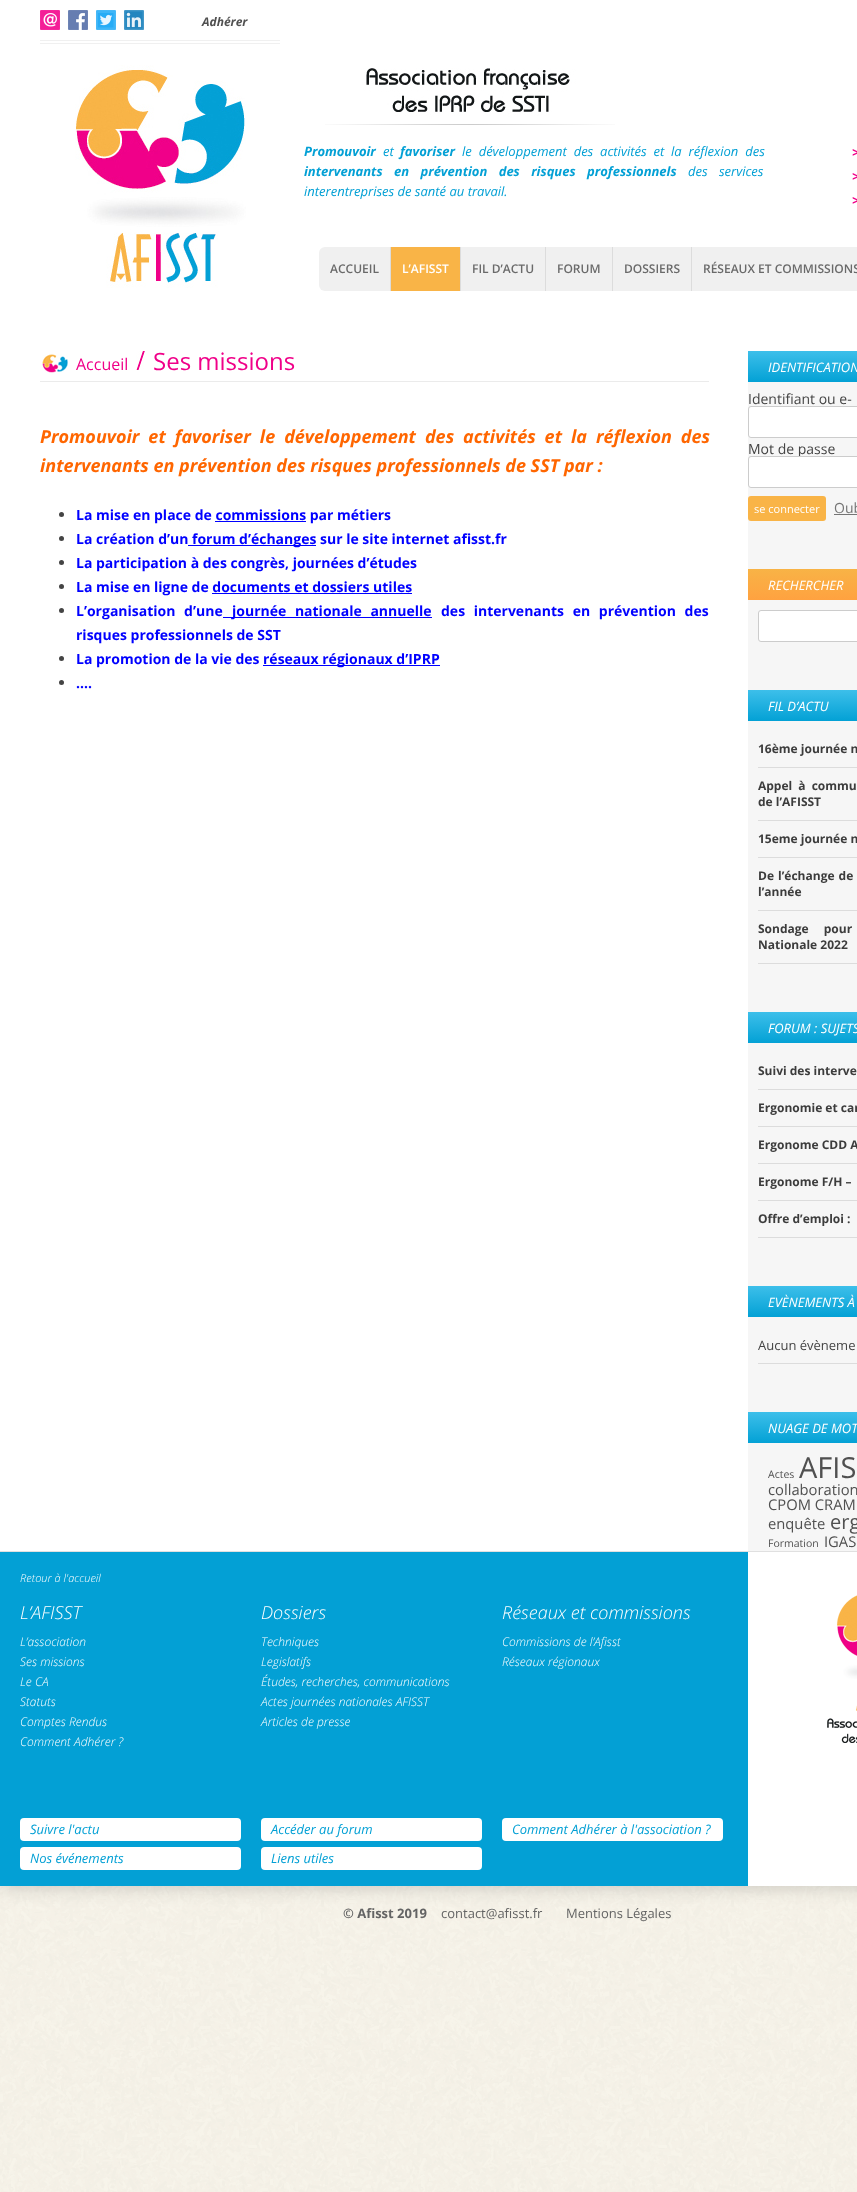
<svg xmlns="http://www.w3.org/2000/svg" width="857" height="2192">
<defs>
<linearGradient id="g1" gradientUnits="userSpaceOnUse" x1="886" y1="351" x2="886" y2="382"><stop offset="0" stop-color="#3dbfea"/><stop offset="1" stop-color="#03a1d5"/></linearGradient>
<linearGradient id="g2" gradientUnits="userSpaceOnUse" x1="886" y1="569" x2="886" y2="600"><stop offset="0" stop-color="#f8b346"/><stop offset="1" stop-color="#ffa240"/></linearGradient>
<linearGradient id="g3" gradientUnits="userSpaceOnUse" x1="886" y1="690" x2="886" y2="721"><stop offset="0" stop-color="#3dbfea"/><stop offset="1" stop-color="#03a1d5"/></linearGradient>
<linearGradient id="g4" gradientUnits="userSpaceOnUse" x1="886" y1="1012" x2="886" y2="1043"><stop offset="0" stop-color="#3dbfea"/><stop offset="1" stop-color="#03a1d5"/></linearGradient>
<linearGradient id="g5" gradientUnits="userSpaceOnUse" x1="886" y1="1286" x2="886" y2="1317"><stop offset="0" stop-color="#3dbfea"/><stop offset="1" stop-color="#03a1d5"/></linearGradient>
<linearGradient id="g6" gradientUnits="userSpaceOnUse" x1="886" y1="1412" x2="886" y2="1443"><stop offset="0" stop-color="#3dbfea"/><stop offset="1" stop-color="#03a1d5"/></linearGradient>
</defs>
<rect width="100%" height="100%" fill="#fff"/>
<image x="0" y="1886" width="857" height="306" href="media/1.png"/>
<rect width="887" height="1886" fill="#00000033" filter="blur(10px)"/>
<rect width="857" height="1551" fill="#fff"/>
<rect x="40" y="40" width="240" height="1" fill="#f0f0f0"/>
<rect x="40" y="43" width="240" height="1" fill="#f0f0f0"/>
<image x="40" y="10" width="20" height="20" href="media/2.png"/>
<image x="68" y="10" width="20" height="20" href="media/3.png"/>
<image x="96" y="10" width="20" height="20" href="media/4.png"/>
<image x="124" y="10" width="20" height="20" href="media/5.png"/>
<text x="202" y="26" style="font-family:Open Sans;font-size:12px;font-weight:bold;font-style:italic;fill:#505050">Adhérer</text>
<image x="75" y="65" width="171" height="223" href="media/6.png"/>
<image x="325" y="68" width="290" height="57" href="media/7.png"/>
<text x="304" y="156" style="font-family:Open Sans;font-size:13px;font-weight:bold;font-style:italic;fill:#03a0d5">Promouvoir</text>
<text x="383" y="156" style="font-family:Open Sans;font-size:13px;font-style:italic;fill:#03a0d5">et</text>
<text x="400" y="156" style="font-family:Open Sans;font-size:13px;font-weight:bold;font-style:italic;fill:#03a0d5">favoriser</text>
<text x="462" y="156" word-spacing="3.5" style="font-family:Open Sans;font-size:13px;font-style:italic;fill:#03a0d5">le développement des activités et la réflexion des</text>
<text x="304" y="176" word-spacing="8" style="font-family:Open Sans;font-size:13px;font-weight:bold;font-style:italic;fill:#03a0d5">intervenants en prévention des risques professionnels</text>
<text x="688" y="176" word-spacing="8" style="font-family:Open Sans;font-size:13px;font-style:italic;fill:#03a0d5">des services</text>
<text x="304" y="196" style="font-family:Open Sans;font-size:13px;font-style:italic;fill:#03a0d5">interentreprises de santé au travail.</text>
<text x="852" y="157" style="font-family:Open Sans;font-size:13px;font-weight:bold;font-style:italic;fill:#f00089">&gt;</text>
<text x="852" y="181" style="font-family:Open Sans;font-size:13px;font-weight:bold;font-style:italic;fill:#f00089">&gt;</text>
<text x="852" y="205" style="font-family:Open Sans;font-size:13px;font-weight:bold;font-style:italic;fill:#f00089">&gt;</text>
<rect x="319" y="247" width="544" height="44" rx="6" fill="#f0f0f0"/>
<rect x="390" y="247" width="1" height="44" fill="#dcdcdc"/>
<text x="330" y="273" style="font-family:Open Sans;font-size:12px;font-weight:600;fill:#6a6a6a">ACCUEIL</text>
<rect x="460" y="247" width="1" height="44" fill="#dcdcdc"/>
<rect x="391" y="247" width="69" height="44" fill="#f9b447"/>
<text x="402" y="273" style="font-family:Open Sans;font-size:12px;font-weight:600;fill:#fff">L’AFISST</text>
<rect x="545" y="247" width="1" height="44" fill="#dcdcdc"/>
<text x="472" y="273" style="font-family:Open Sans;font-size:12px;font-weight:600;fill:#6a6a6a">FIL D’ACTU</text>
<rect x="612" y="247" width="1" height="44" fill="#dcdcdc"/>
<text x="557" y="273" style="font-family:Open Sans;font-size:12px;font-weight:600;fill:#6a6a6a">FORUM</text>
<rect x="691" y="247" width="1" height="44" fill="#dcdcdc"/>
<text x="624" y="273" style="font-family:Open Sans;font-size:12px;font-weight:600;fill:#6a6a6a">DOSSIERS</text>
<text x="703" y="273" style="font-family:Open Sans;font-size:12px;font-weight:600;fill:#6a6a6a">RÉSEAUX ET COMMISSIONS</text>
<rect x="40" y="381" width="669" height="1" fill="#ebebeb"/>
<image x="42" y="354" width="26" height="19" href="media/8.png"/>
<text x="76" y="370" style="font-family:Open Sans;font-size:16px;fill:#f00089">Accueil</text>
<image x="136" y="351" width="9" height="19" href="media/9.png"/>
<text x="153" y="370" style="font-family:Open Sans;font-size:24px;fill:#f00089">Ses missions</text>
<text x="40" y="443" word-spacing="4.25" style="font-family:Open Sans;font-size:18px;font-weight:bold;font-style:italic;fill:#f60">Promouvoir et favoriser le développement des activités et la réflexion des</text>
<text x="40" y="472" style="font-family:Open Sans;font-size:18px;font-weight:bold;font-style:italic;fill:#f60">intervenants en prévention des risques professionnels de SST par :</text>
<circle cx="61.5" cy="514.5" r="2.5" fill="#444"/>
<text x="76" y="520" style="font-family:Open Sans;font-size:14px;font-weight:bold;fill:#00f">La mise en place de commissions par métiers</text>
<rect x="215" y="521" width="91" height="1" fill="#00f"/>
<circle cx="61.5" cy="538.5" r="2.5" fill="#444"/>
<text x="76" y="544" style="font-family:Open Sans;font-size:14px;font-weight:bold;fill:#00f">La création d’un</text>
<rect x="188" y="545" width="128" height="1" fill="#00f"/>
<text x="192" y="544" style="font-family:Open Sans;font-size:14px;font-weight:bold;fill:#00f">forum d’échanges sur le site internet afisst.fr</text>
<circle cx="61.5" cy="562.5" r="2.5" fill="#444"/>
<text x="76" y="568" style="font-family:Open Sans;font-size:14px;font-weight:bold;fill:#00f">La participation à des congrès, journées d’études</text>
<circle cx="61.5" cy="586.5" r="2.5" fill="#444"/>
<text x="76" y="592" style="font-family:Open Sans;font-size:14px;font-weight:bold;fill:#00f">La mise en ligne de documents et dossiers utiles</text>
<rect x="212" y="593" width="200" height="1" fill="#00f"/>
<circle cx="61.5" cy="610.5" r="2.5" fill="#444"/>
<text x="76" y="616" word-spacing="5" style="font-family:Open Sans;font-size:14px;font-weight:bold;fill:#00f">L’organisation d’une</text>
<rect x="223" y="617" width="209" height="1" fill="#00f"/>
<text x="232" y="616" word-spacing="5" style="font-family:Open Sans;font-size:14px;font-weight:bold;fill:#00f">journée nationale annuelle</text>
<text x="441" y="616" word-spacing="5" style="font-family:Open Sans;font-size:14px;font-weight:bold;fill:#00f">des intervenants en prévention des</text>
<text x="76" y="640" style="font-family:Open Sans;font-size:14px;font-weight:bold;fill:#00f">risques professionnels de SST</text>
<circle cx="61.5" cy="658.5" r="2.5" fill="#444"/>
<text x="76" y="664" style="font-family:Open Sans;font-size:14px;font-weight:bold;fill:#00f">La promotion de la vie des</text>
<rect x="263" y="665" width="177" height="1" fill="#00f"/>
<text x="263" y="664" style="font-family:Open Sans;font-size:14px;font-weight:bold;fill:#00f">réseaux régionaux d’IPRP</text>
<circle cx="61.5" cy="682.5" r="2.5" fill="#444"/>
<text x="76" y="688" style="font-family:Open Sans;font-size:14px;font-weight:bold;fill:#00f">….</text>
<rect x="748" y="382" width="109" height="1169" fill="#f6f6f6"/>
<rect x="748" y="351" width="109" height="31" fill="url(#g1)"/>
<text x="768" y="372" style="font-family:Open Sans;font-size:13px;font-style:italic;fill:#fff">IDENTIFICATION</text>
<text x="748" y="404" style="font-family:Open Sans;font-size:14px;fill:#444">Identifiant ou e-</text>
<rect x="748.5" y="406.5" width="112" height="31" rx="2.5" fill="#fff" stroke="#ccc"/>
<text x="748" y="454" style="font-family:Open Sans;font-size:14px;fill:#444">Mot de passe</text>
<rect x="748.5" y="456.5" width="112" height="31" rx="2.5" fill="#fff" stroke="#ccc"/>
<rect x="748" y="496" width="78" height="25" rx="3" fill="#f9b447"/>
<text x="754" y="513" style="font-family:Open Sans;font-size:11px;fill:#fff">se connecter</text>
<text x="834" y="513" style="font-family:Open Sans;font-size:14px;fill:#757575">Oub</text>
<rect x="834" y="514" width="23" height="1" fill="#757575"/>
<rect x="748" y="569" width="109" height="31" fill="url(#g2)"/>
<text x="768" y="590" style="font-family:Open Sans;font-size:13px;font-style:italic;fill:#fff">RECHERCHER</text>
<rect x="758.5" y="610.5" width="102" height="31" rx="2.5" fill="#fff" stroke="#ccc"/>
<rect x="748" y="690" width="109" height="31" fill="url(#g3)"/>
<text x="768" y="711" style="font-family:Open Sans;font-size:13px;font-style:italic;fill:#fff">FIL D’ACTU</text>
<rect x="758" y="767" width="99" height="1" fill="#dcdcdc"/>
<text x="758" y="753" style="font-family:Open Sans;font-size:12px;font-weight:bold;fill:#3c3c3c">16ème journée n</text>
<rect x="758" y="820" width="99" height="1" fill="#dcdcdc"/>
<text x="758" y="790" word-spacing="3" style="font-family:Open Sans;font-size:12px;font-weight:bold;fill:#3c3c3c">Appel à commu</text>
<text x="758" y="806" style="font-family:Open Sans;font-size:12px;font-weight:bold;fill:#3c3c3c">de l’AFISST</text>
<rect x="758" y="857" width="99" height="1" fill="#dcdcdc"/>
<text x="758" y="843" style="font-family:Open Sans;font-size:12px;font-weight:bold;fill:#3c3c3c">15eme journée n</text>
<rect x="758" y="910" width="99" height="1" fill="#dcdcdc"/>
<text x="758" y="880" word-spacing="1" style="font-family:Open Sans;font-size:12px;font-weight:bold;fill:#3c3c3c">De l’échange de</text>
<text x="758" y="896" style="font-family:Open Sans;font-size:12px;font-weight:bold;fill:#3c3c3c">l’année</text>
<rect x="758" y="963" width="99" height="1" fill="#dcdcdc"/>
<text x="758" y="933" word-spacing="12" style="font-family:Open Sans;font-size:12px;font-weight:bold;fill:#3c3c3c">Sondage pour</text>
<text x="758" y="949" style="font-family:Open Sans;font-size:12px;font-weight:bold;fill:#3c3c3c">Nationale 2022</text>
<rect x="748" y="1012" width="109" height="31" fill="url(#g4)"/>
<text x="768" y="1033" style="font-family:Open Sans;font-size:13px;font-style:italic;fill:#fff">FORUM : SUJETS</text>
<rect x="758" y="1089" width="99" height="1" fill="#dcdcdc"/>
<text x="758" y="1075" style="font-family:Open Sans;font-size:12px;font-weight:bold;fill:#3c3c3c">Suivi des interve</text>
<rect x="758" y="1126" width="99" height="1" fill="#dcdcdc"/>
<text x="758" y="1112" style="font-family:Open Sans;font-size:12px;font-weight:bold;fill:#3c3c3c">Ergonomie et car</text>
<rect x="758" y="1163" width="99" height="1" fill="#dcdcdc"/>
<text x="758" y="1149" style="font-family:Open Sans;font-size:12px;font-weight:bold;fill:#3c3c3c">Ergonome CDD A</text>
<rect x="758" y="1200" width="99" height="1" fill="#dcdcdc"/>
<text x="758" y="1186" style="font-family:Open Sans;font-size:12px;font-weight:bold;fill:#3c3c3c">Ergonome F/H –</text>
<rect x="758" y="1237" width="99" height="1" fill="#dcdcdc"/>
<text x="758" y="1223" style="font-family:Open Sans;font-size:12px;font-weight:bold;fill:#3c3c3c">Offre d’emploi :</text>
<rect x="748" y="1286" width="109" height="31" fill="url(#g5)"/>
<text x="768" y="1307" style="font-family:Open Sans;font-size:13px;font-style:italic;fill:#fff">EVÈNEMENTS À</text>
<rect x="758" y="1363" width="99" height="1" fill="#dcdcdc"/>
<text x="758" y="1350" style="font-family:Open Sans;font-size:13px;fill:#444">Aucun évèneme</text>
<rect x="748" y="1412" width="109" height="31" fill="url(#g6)"/>
<text x="768" y="1433" style="font-family:Open Sans;font-size:13px;font-style:italic;fill:#fff">NUAGE DE MOT</text>
<text x="768" y="1478" style="font-family:Open Sans;font-size:10.5px;fill:#505050">Actes</text>
<text x="799" y="1478" style="font-family:Open Sans;font-size:29px;fill:#505050">AFIS</text>
<text x="768" y="1495" style="font-family:Open Sans;font-size:14.75px;fill:#505050">collaboration</text>
<text x="768" y="1510" style="font-family:Open Sans;font-size:14.75px;fill:#505050">CPOM CRAM</text>
<text x="768" y="1529" style="font-family:Open Sans;font-size:14.75px;fill:#505050">enquête</text>
<text x="830" y="1529" style="font-family:Open Sans;font-size:20px;fill:#505050">erg</text>
<text x="768" y="1547" style="font-family:Open Sans;font-size:10.5px;fill:#505050">Formation</text>
<text x="824" y="1547" style="font-family:Open Sans;font-size:14.75px;fill:#505050">IGAS</text>
<rect y="1552" width="748" height="334" fill="#03a0d5"/>
<rect y="1551" width="857" height="1" fill="#e0e0e0"/>
<text x="20" y="1582" style="font-family:Open Sans;font-size:11px;font-weight:300;font-style:italic;fill:#fff">Retour à l'accueil</text>
<text x="20" y="1619" style="font-family:Open Sans;font-size:18px;font-weight:300;font-style:italic;fill:#fff">L’AFISST</text>
<text x="20" y="1646" style="font-family:Open Sans;font-size:12px;font-weight:300;font-style:italic;fill:#fff">L’association</text>
<text x="20" y="1666" style="font-family:Open Sans;font-size:12px;font-weight:300;font-style:italic;fill:#fff">Ses missions</text>
<text x="20" y="1686" style="font-family:Open Sans;font-size:12px;font-weight:300;font-style:italic;fill:#fff">Le CA</text>
<text x="20" y="1706" style="font-family:Open Sans;font-size:12px;font-weight:300;font-style:italic;fill:#fff">Statuts</text>
<text x="20" y="1726" style="font-family:Open Sans;font-size:12px;font-weight:300;font-style:italic;fill:#fff">Comptes Rendus</text>
<text x="20" y="1746" style="font-family:Open Sans;font-size:12px;font-weight:300;font-style:italic;fill:#fff">Comment Adhérer ?</text>
<text x="261" y="1619" style="font-family:Open Sans;font-size:18px;font-weight:300;font-style:italic;fill:#fff">Dossiers</text>
<text x="261" y="1646" style="font-family:Open Sans;font-size:12px;font-weight:300;font-style:italic;fill:#fff">Techniques</text>
<text x="261" y="1666" style="font-family:Open Sans;font-size:12px;font-weight:300;font-style:italic;fill:#fff">Legislatifs</text>
<text x="261" y="1686" style="font-family:Open Sans;font-size:12px;font-weight:300;font-style:italic;fill:#fff">Études, recherches, communications</text>
<text x="261" y="1706" style="font-family:Open Sans;font-size:12px;font-weight:300;font-style:italic;fill:#fff">Actes journées nationales AFISST</text>
<text x="261" y="1726" style="font-family:Open Sans;font-size:12px;font-weight:300;font-style:italic;fill:#fff">Articles de presse</text>
<text x="502" y="1619" style="font-family:Open Sans;font-size:18px;font-weight:300;font-style:italic;fill:#fff">Réseaux et commissions</text>
<text x="502" y="1646" style="font-family:Open Sans;font-size:12px;font-weight:300;font-style:italic;fill:#fff">Commissions de l’Afisst</text>
<text x="502" y="1666" style="font-family:Open Sans;font-size:12px;font-weight:300;font-style:italic;fill:#fff">Réseaux régionaux</text>
<rect x="20" y="1818" width="221" height="23" rx="4" fill="#fff"/>
<text x="30" y="1834" style="font-family:Open Sans;font-size:13px;font-style:italic;fill:#03a0d5">Suivre l'actu</text>
<rect x="20" y="1847" width="221" height="23" rx="4" fill="#fff"/>
<text x="30" y="1863" style="font-family:Open Sans;font-size:13px;font-style:italic;fill:#03a0d5">Nos événements</text>
<rect x="261" y="1818" width="221" height="23" rx="4" fill="#fff"/>
<text x="271" y="1834" style="font-family:Open Sans;font-size:13px;font-style:italic;fill:#03a0d5">Accéder au forum</text>
<rect x="261" y="1847" width="221" height="23" rx="4" fill="#fff"/>
<text x="271" y="1863" style="font-family:Open Sans;font-size:13px;font-style:italic;fill:#03a0d5">Liens utiles</text>
<rect x="502" y="1818" width="221" height="23" rx="4" fill="#fff"/>
<text x="512" y="1834" style="font-family:Open Sans;font-size:13px;font-style:italic;fill:#03a0d5">Comment Adhérer à l'association ?</text>
<rect x="748" y="1552" width="109" height="334" fill="#fff"/>
<image x="827" y="1595" width="30" height="148" href="media/10.png"/>
<text x="343" y="1918" style="font-family:Open Sans;font-size:13px;font-weight:bold;fill:#646464">© Afisst 2019</text>
<text x="441" y="1918" style="font-family:Open Sans;font-size:13px;fill:#646464">contact@afisst.fr</text>
<text x="566" y="1918" style="font-family:Open Sans;font-size:13px;fill:#646464">Mentions Légales</text>
</svg>
